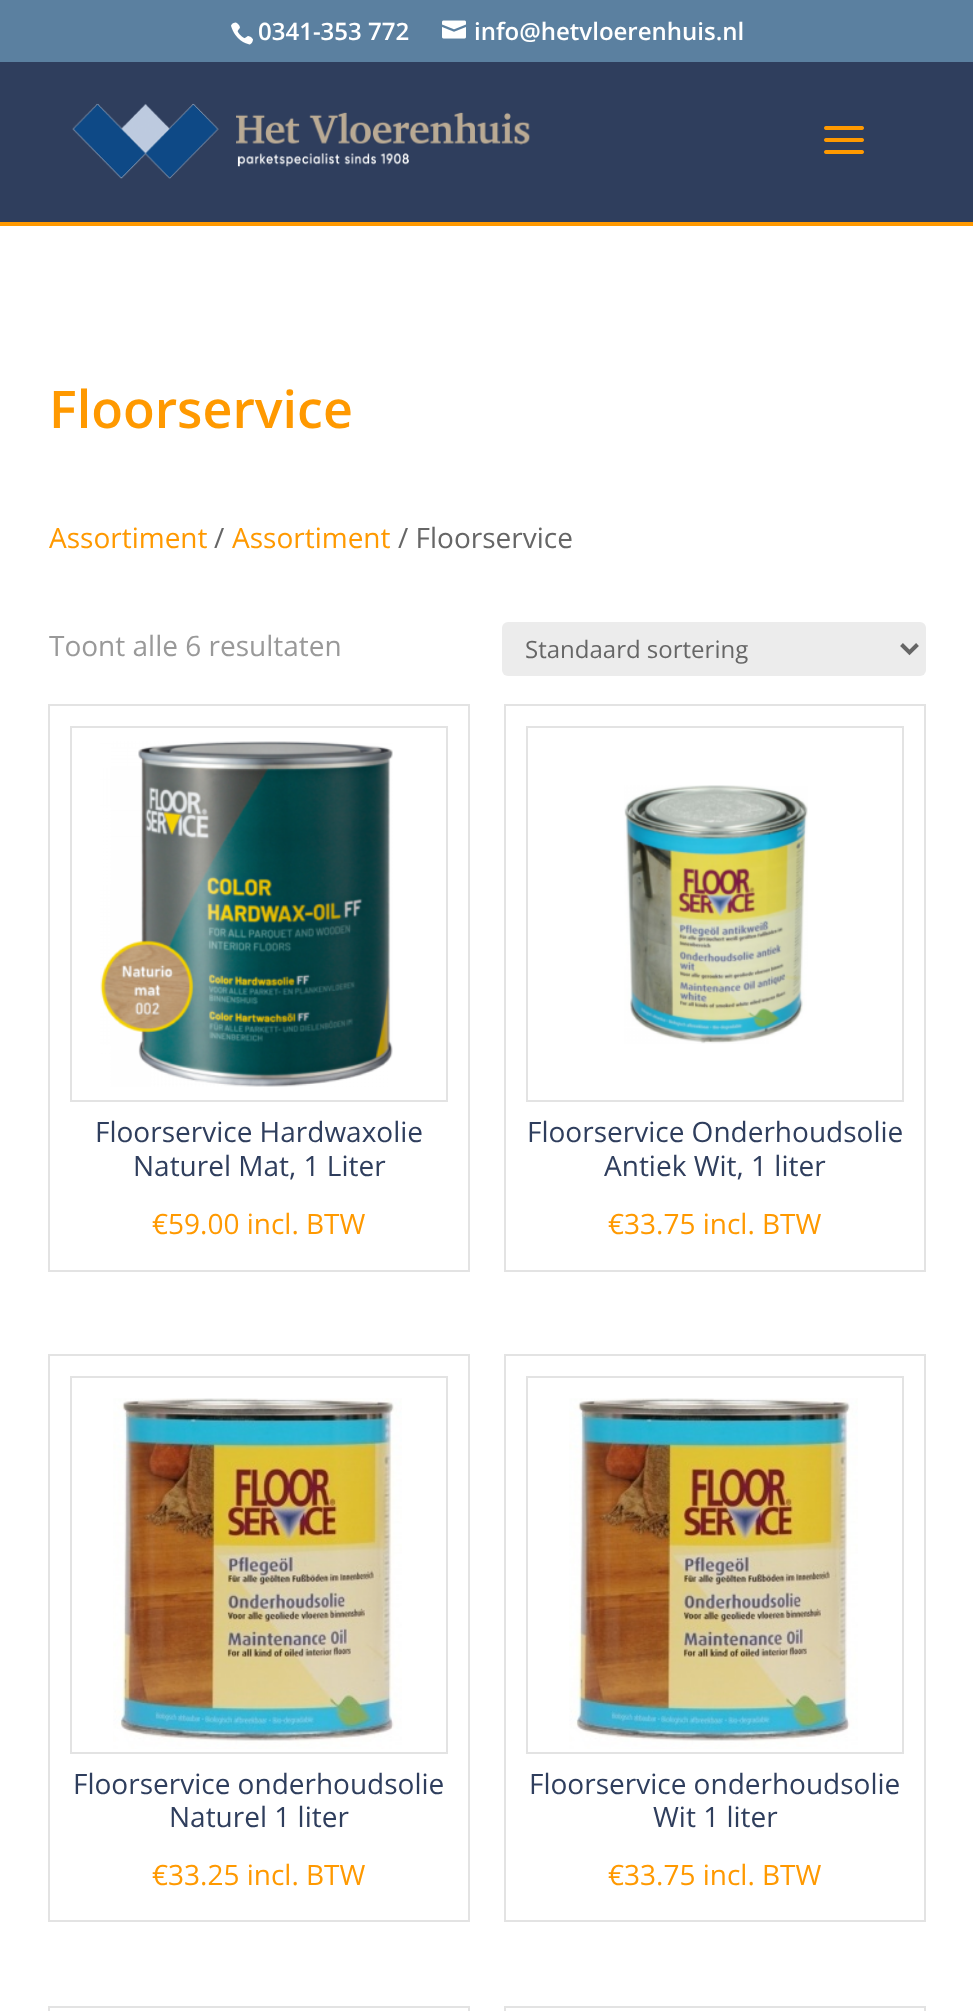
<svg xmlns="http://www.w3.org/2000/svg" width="973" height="2011">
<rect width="100%" height="100%" fill="#fff"/>
<rect width="973" height="62" fill="#5b80a0"/>
<image x="231" y="22" width="22" height="23" href="media/1.png"/>
<text x="258" y="40" style="font-family:Open Sans;font-size:24px;font-weight:600;fill:#fff">0341-353 772</text>
<image x="442" y="20" width="24" height="19" href="media/2.png"/>
<text x="474" y="40" style="font-family:Open Sans;font-size:24px;font-weight:600;fill:#fff">info@hetvloerenhuis.nl</text>
<rect y="222" width="973" height="4" fill="#f90"/>
<rect y="62" width="973" height="160" fill="#2f3e5d"/>
<image x="72" y="103" width="458" height="76" href="media/3.png"/>
<image x="824" y="126" width="40" height="28" href="media/4.png"/>
<text x="49" y="428" style="font-family:Open Sans;font-size:52px;font-weight:600;fill:#f90">Floorservice</text>
<text x="49" y="548" style="font-family:Open Sans;font-size:28px;fill:#f90">Assortiment</text>
<text x="214" y="548" style="font-family:Open Sans;font-size:28px;fill:#666">/</text>
<text x="232" y="548" style="font-family:Open Sans;font-size:28px;fill:#f90">Assortiment</text>
<text x="398" y="548" style="font-family:Open Sans;font-size:28px;fill:#666">/ Floorservice</text>
<text x="49" y="656" style="font-family:Open Sans;font-size:28px;fill:#999">Toont alle 6 resultaten</text>
<rect x="502" y="622" width="424" height="54" rx="6" fill="#ececec"/>
<path d="M901.5 644.5l8 8l8-8" fill="none" stroke="#666" stroke-width="4"/>
<text x="525" y="658" style="font-family:Open Sans;font-size:24px;fill:#666">Standaard sortering</text>
<rect x="49" y="705" width="420" height="566" fill="none" stroke="#e3e3e3" stroke-width="2"/>
<rect x="71" y="727" width="376" height="374" fill="none" stroke="#e3e3e3" stroke-width="2"/>
<image x="100" y="741" width="293" height="346" href="media/5.png"/>
<text x="95" y="1142" style="font-family:Open Sans;font-size:28px;fill:#2f3e5d">Floorservice Hardwaxolie</text>
<text x="133" y="1176" style="font-family:Open Sans;font-size:28px;fill:#2f3e5d">Naturel Mat, 1 Liter</text>
<text x="152" y="1234" style="font-family:Open Sans;font-size:28px;fill:#f90">€59.00 incl. BTW</text>
<rect x="505" y="705" width="420" height="566" fill="none" stroke="#e3e3e3" stroke-width="2"/>
<rect x="527" y="727" width="376" height="374" fill="none" stroke="#e3e3e3" stroke-width="2"/>
<image x="624" y="785" width="184" height="259" href="media/6.png"/>
<text x="527" y="1142" style="font-family:Open Sans;font-size:28px;fill:#2f3e5d">Floorservice Onderhoudsolie</text>
<text x="604" y="1176" style="font-family:Open Sans;font-size:28px;fill:#2f3e5d">Antiek Wit, 1 liter</text>
<text x="608" y="1234" style="font-family:Open Sans;font-size:28px;fill:#f90">€33.75 incl. BTW</text>
<rect x="49" y="1355" width="420" height="566" fill="none" stroke="#e3e3e3" stroke-width="2"/>
<rect x="71" y="1377" width="376" height="376" fill="none" stroke="#e3e3e3" stroke-width="2"/>
<image x="113" y="1398" width="289" height="351" href="media/7.png"/>
<text x="73" y="1794" style="font-family:Open Sans;font-size:28px;fill:#2f3e5d">Floorservice onderhoudsolie</text>
<text x="169" y="1827" style="font-family:Open Sans;font-size:28px;fill:#2f3e5d">Naturel 1 liter</text>
<text x="152" y="1885" style="font-family:Open Sans;font-size:28px;fill:#f90">€33.25 incl. BTW</text>
<rect x="505" y="1355" width="420" height="566" fill="none" stroke="#e3e3e3" stroke-width="2"/>
<rect x="527" y="1377" width="376" height="376" fill="none" stroke="#e3e3e3" stroke-width="2"/>
<image x="569" y="1398" width="289" height="351" href="media/7.png"/>
<text x="529" y="1794" style="font-family:Open Sans;font-size:28px;fill:#2f3e5d">Floorservice onderhoudsolie</text>
<text x="653" y="1827" style="font-family:Open Sans;font-size:28px;fill:#2f3e5d">Wit 1 liter</text>
<text x="608" y="1885" style="font-family:Open Sans;font-size:28px;fill:#f90">€33.75 incl. BTW</text>
<rect x="49" y="2007" width="420" height="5" fill="none" stroke="#e3e3e3" stroke-width="2"/>
<rect x="505" y="2007" width="420" height="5" fill="none" stroke="#e3e3e3" stroke-width="2"/>
</svg>
